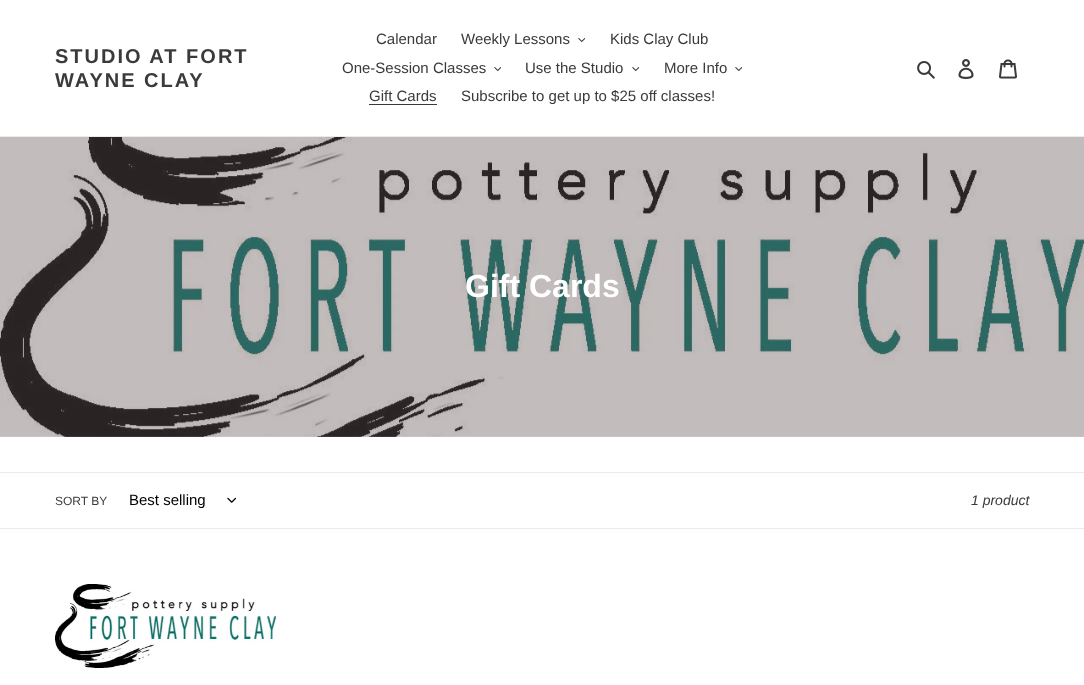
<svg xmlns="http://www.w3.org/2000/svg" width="1084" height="685">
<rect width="100%" height="100%" fill="#fff"/>
<rect y="136" width="1084" height="1" fill="#ebebeb"/>
<text x="55" y="63" style="font-family:Liberation Sans;font-size:20px;font-weight:bold;letter-spacing:2px;fill:#3a3a3a">STUDIO AT FORT</text>
<text x="55" y="87" style="font-family:Liberation Sans;font-size:20px;font-weight:bold;letter-spacing:2px;fill:#3a3a3a">WAYNE CLAY</text>
<text x="376" y="44" style="font-family:Liberation Sans;font-size:15px;fill:#3a3a3a">Calendar</text>
<text x="461" y="44" style="font-family:Liberation Sans;font-size:15px;fill:#3a3a3a">Weekly Lessons</text>
<image x="578" y="38" width="7" height="4" href="media/1.png"/>
<text x="610" y="44" style="font-family:Liberation Sans;font-size:15px;fill:#3a3a3a">Kids Clay Club</text>
<text x="342" y="73" style="font-family:Liberation Sans;font-size:15px;fill:#3a3a3a">One-Session Classes</text>
<image x="494" y="67" width="7" height="4" href="media/1.png"/>
<text x="525" y="73" style="font-family:Liberation Sans;font-size:15px;fill:#3a3a3a">Use the Studio</text>
<image x="632" y="67" width="7" height="4" href="media/1.png"/>
<text x="664" y="73" style="font-family:Liberation Sans;font-size:15px;fill:#3a3a3a">More Info</text>
<image x="735" y="67" width="7" height="4" href="media/1.png"/>
<text x="369" y="101" style="font-family:Liberation Sans;font-size:15px;fill:#3a3a3a">Gift Cards</text>
<rect x="369" y="104" width="68" height="1" fill="#3a3a3a"/>
<text x="461" y="101" style="font-family:Liberation Sans;font-size:15px;fill:#3a3a3a">Subscribe to get up to $25 off classes!</text>
<image x="917" y="61" width="18" height="18" href="media/2.png"/>
<image x="958" y="59" width="16" height="20" href="media/3.png"/>
<image x="999" y="59" width="18" height="20" href="media/4.png"/>
<image x="0" y="137" width="1084" height="300" href="media/5.png"/>
<text x="465" y="297" style="font-family:Liberation Sans;font-size:32px;font-weight:bold;fill:#fff">Gift Cards</text>
<rect y="472" width="1084" height="1" fill="#ebebeb"/>
<rect y="528" width="1084" height="1" fill="#ebebeb"/>
<text x="55" y="505" style="font-family:Liberation Sans;font-size:12px;fill:#3a3a3a">SORT BY</text>
<text x="129" y="505" style="font-family:Liberation Sans;font-size:15px;fill:#000">Best selling</text>
<image x="227" y="497" width="9" height="6" href="media/6.png"/>
<text x="971" y="505" style="font-family:Liberation Sans;font-size:14px;font-style:italic;fill:#3a3a3a">1 product</text>
<image x="55" y="584" width="221" height="84" href="media/7.png"/>
</svg>
